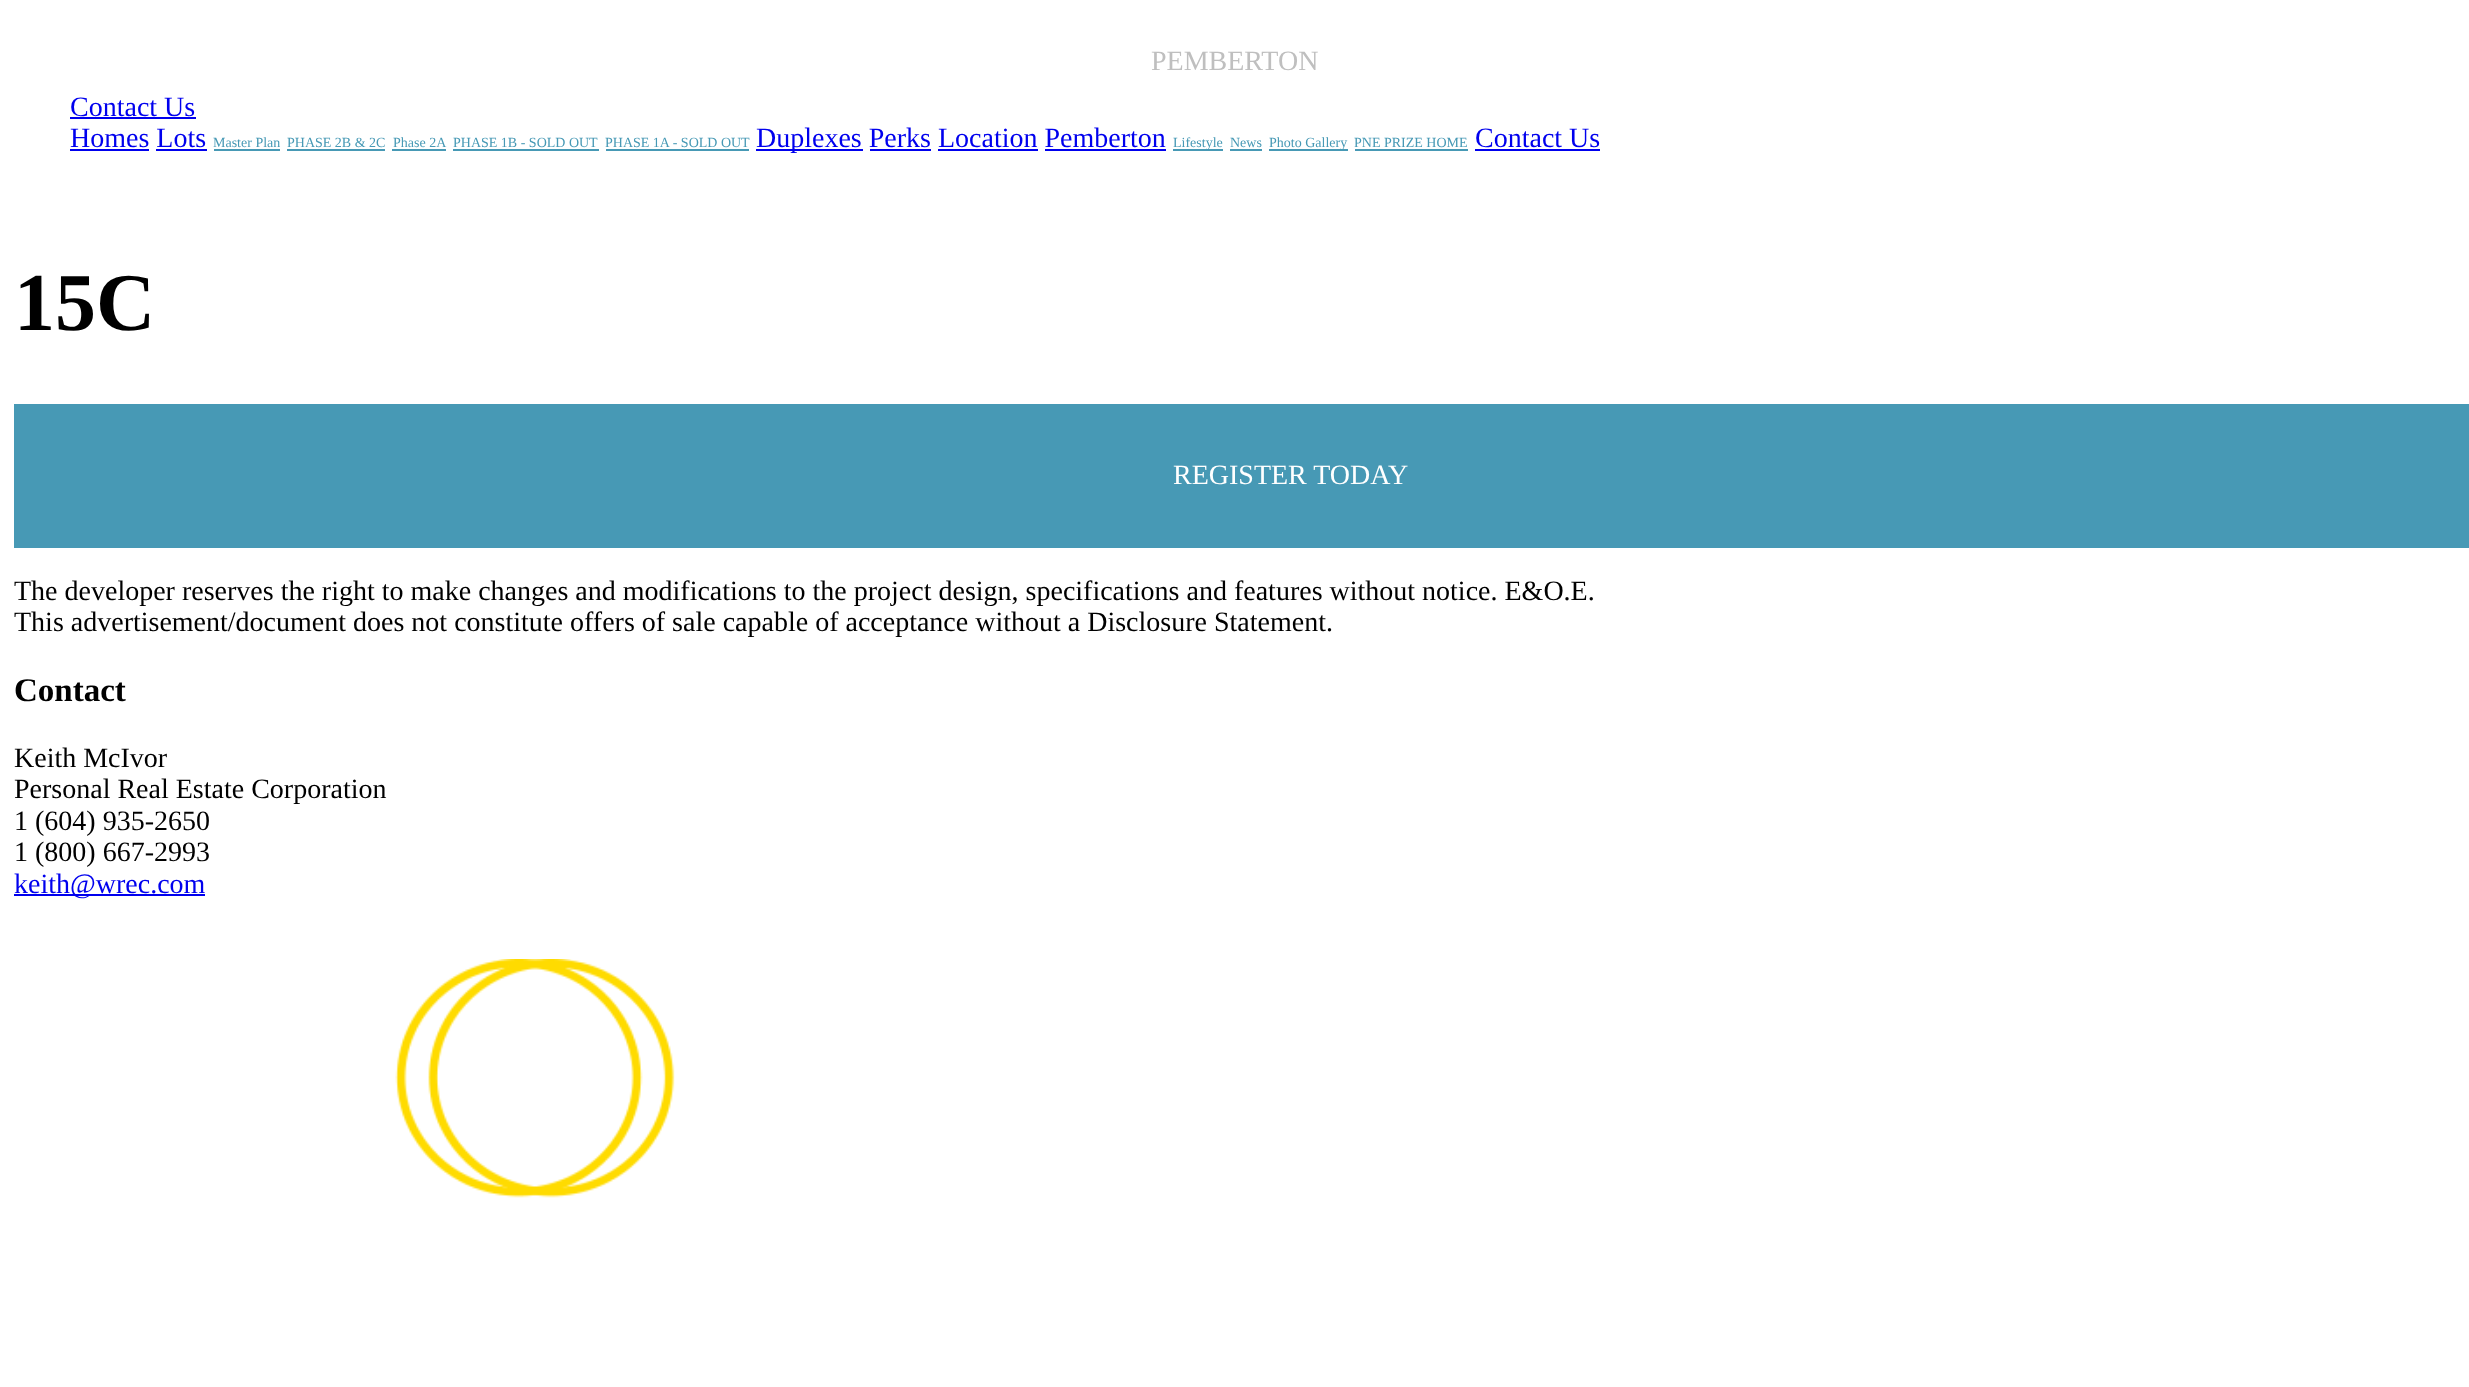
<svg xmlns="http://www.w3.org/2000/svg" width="2469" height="1387">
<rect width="100%" height="100%" fill="#fff"/>
<text x="1151" y="70" style="font-family:Liberation Serif;font-size:28px;fill:#bfbfbf">PEMBERTON</text>
<text x="70" y="116" style="font-family:Liberation Serif;font-size:28px;fill:#00e">Contact Us</text>
<rect x="70" y="117" width="126" height="2" fill="#00e"/>
<text x="70" y="147" style="font-family:Liberation Serif;font-size:28px;fill:#00e">Homes Lots</text>
<rect x="70" y="149" width="79" height="2" fill="#00e"/>
<text x="213" y="147" style="font-family:Liberation Serif;font-size:14px;fill:#4799b5">Master Plan</text>
<rect x="214" y="149" width="66" height="2" fill="#4799b5"/>
<text x="287" y="147" style="font-family:Liberation Serif;font-size:14px;fill:#4799b5">PHASE 2B &amp; 2C</text>
<rect x="287" y="149" width="98" height="2" fill="#4799b5"/>
<text x="393" y="147" style="font-family:Liberation Serif;font-size:14px;fill:#4799b5">Phase 2A</text>
<rect x="392" y="149" width="54" height="2" fill="#4799b5"/>
<text x="453" y="147" style="font-family:Liberation Serif;font-size:14px;fill:#4799b5">PHASE 1B - SOLD OUT</text>
<rect x="453" y="149" width="146" height="2" fill="#4799b5"/>
<text x="605" y="147" style="font-family:Liberation Serif;font-size:14px;fill:#4799b5">PHASE 1A - SOLD OUT</text>
<rect x="606" y="149" width="143" height="2" fill="#4799b5"/>
<rect x="756" y="149" width="107" height="2" fill="#00e"/>
<text x="756" y="147" style="font-family:Liberation Serif;font-size:28px;fill:#00e">Duplexes Perks Location Pemberton</text>
<rect x="1173" y="149" width="50" height="2" fill="#4799b5"/>
<text x="1173" y="147" style="font-family:Liberation Serif;font-size:14px;fill:#4799b5">Lifestyle</text>
<text x="1230" y="147" style="font-family:Liberation Serif;font-size:14px;fill:#4799b5">News</text>
<rect x="1230" y="149" width="32" height="2" fill="#4799b5"/>
<rect x="1269" y="149" width="79" height="2" fill="#4799b5"/>
<text x="1269" y="147" style="font-family:Liberation Serif;font-size:14px;fill:#4799b5">Photo Gallery</text>
<text x="1354" y="147" style="font-family:Liberation Serif;font-size:14px;fill:#4799b5">PNE PRIZE HOME</text>
<rect x="1355" y="149" width="113" height="2" fill="#4799b5"/>
<text x="1475" y="147" style="font-family:Liberation Serif;font-size:28px;fill:#00e">Contact Us</text>
<rect x="1475" y="149" width="125" height="2" fill="#00e"/>
<rect x="156" y="149" width="51" height="2" fill="#00e"/>
<rect x="870" y="149" width="61" height="2" fill="#00e"/>
<rect x="938" y="149" width="100" height="2" fill="#00e"/>
<rect x="1045" y="149" width="121" height="2" fill="#00e"/>
<text x="14" y="330" style="font-family:Liberation Serif;font-size:82px;font-weight:bold;fill:#000">15C</text>
<rect x="14" y="404" width="2455" height="144" fill="#4799b5"/>
<text x="1173" y="484" style="font-family:Liberation Serif;font-size:28px;fill:#fff">REGISTER TODAY</text>
<text x="14" y="600" style="font-family:Liberation Serif;font-size:28px;fill:#000">The developer reserves the right to make changes and modifications to the project design, specifications and features without notice. E&amp;O.E.</text>
<text x="14" y="631" style="font-family:Liberation Serif;font-size:28px;fill:#000">This advertisement/document does not constitute offers of sale capable of acceptance without a Disclosure Statement.</text>
<text x="14" y="701" style="font-family:Liberation Serif;font-size:33px;font-weight:bold;fill:#000">Contact</text>
<text x="14" y="767" style="font-family:Liberation Serif;font-size:28px;fill:#000">Keith McIvor</text>
<text x="14" y="798" style="font-family:Liberation Serif;font-size:28px;fill:#000">Personal Real Estate Corporation</text>
<text x="14" y="830" style="font-family:Liberation Serif;font-size:28px;fill:#000">1 (604) 935-2650</text>
<text x="14" y="861" style="font-family:Liberation Serif;font-size:28px;fill:#000">1 (800) 667-2993</text>
<rect x="14" y="894" width="191" height="2" fill="#00e"/>
<text x="14" y="893" style="font-family:Liberation Serif;font-size:28px;fill:#00e">keith@wrec.com</text>
<image x="395" y="959" width="280" height="239" href="media/1.png"/>
</svg>
